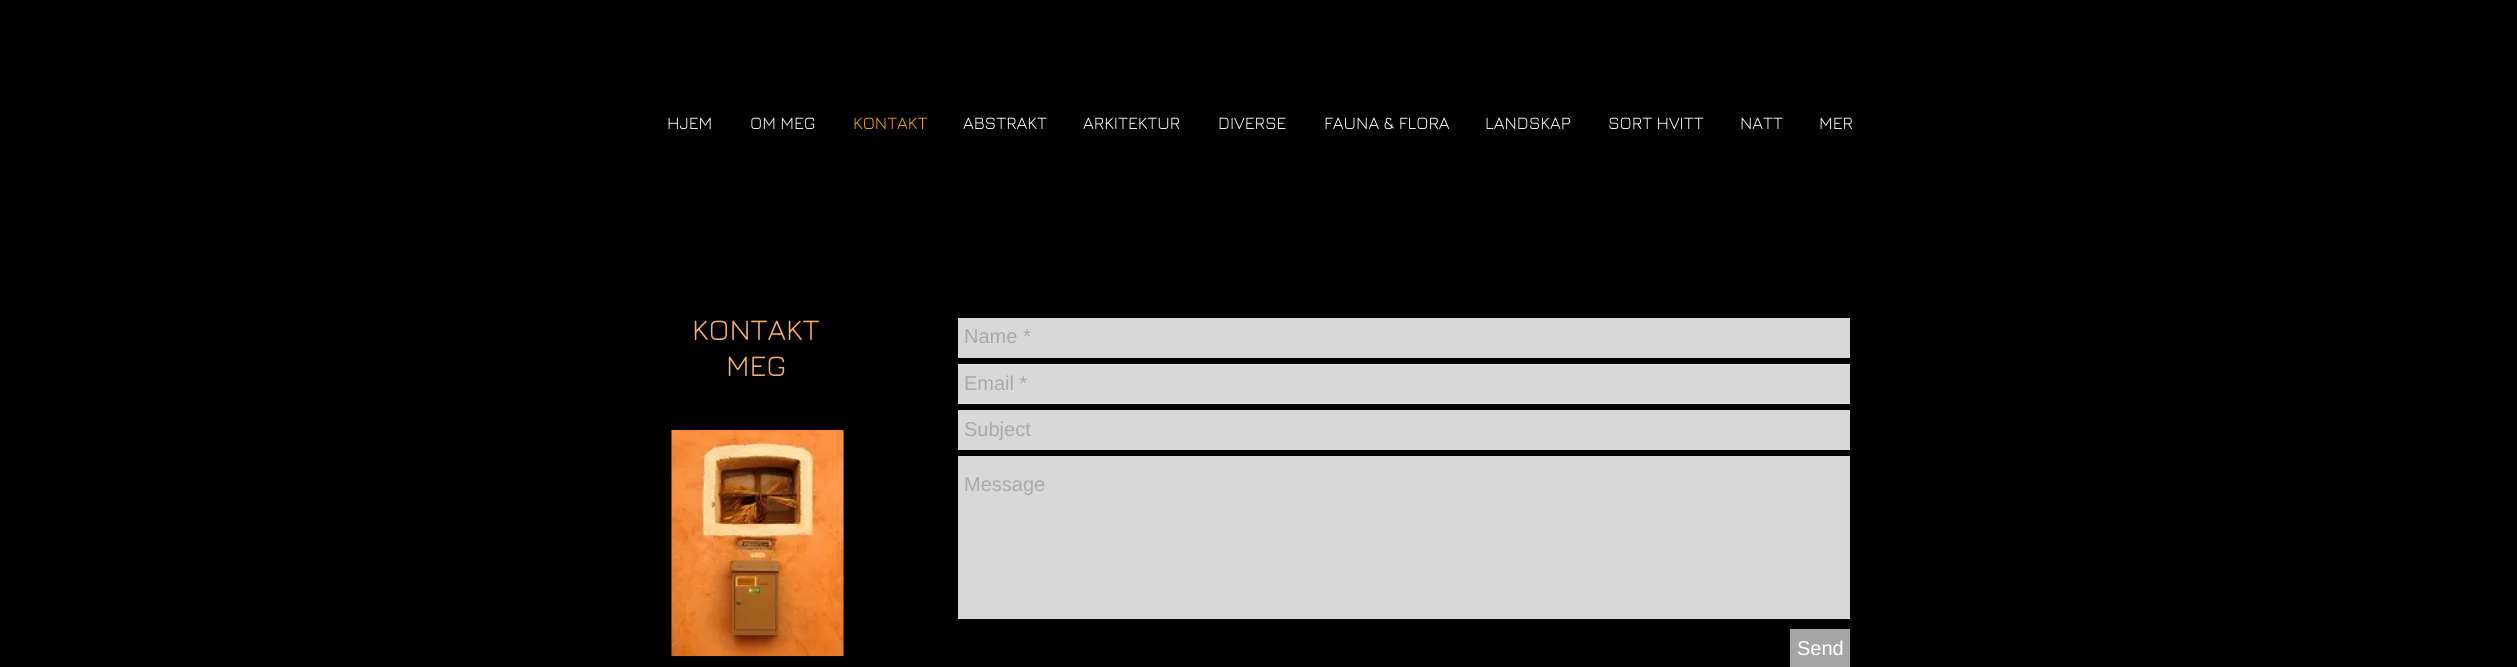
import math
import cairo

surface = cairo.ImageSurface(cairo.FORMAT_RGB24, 2517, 667)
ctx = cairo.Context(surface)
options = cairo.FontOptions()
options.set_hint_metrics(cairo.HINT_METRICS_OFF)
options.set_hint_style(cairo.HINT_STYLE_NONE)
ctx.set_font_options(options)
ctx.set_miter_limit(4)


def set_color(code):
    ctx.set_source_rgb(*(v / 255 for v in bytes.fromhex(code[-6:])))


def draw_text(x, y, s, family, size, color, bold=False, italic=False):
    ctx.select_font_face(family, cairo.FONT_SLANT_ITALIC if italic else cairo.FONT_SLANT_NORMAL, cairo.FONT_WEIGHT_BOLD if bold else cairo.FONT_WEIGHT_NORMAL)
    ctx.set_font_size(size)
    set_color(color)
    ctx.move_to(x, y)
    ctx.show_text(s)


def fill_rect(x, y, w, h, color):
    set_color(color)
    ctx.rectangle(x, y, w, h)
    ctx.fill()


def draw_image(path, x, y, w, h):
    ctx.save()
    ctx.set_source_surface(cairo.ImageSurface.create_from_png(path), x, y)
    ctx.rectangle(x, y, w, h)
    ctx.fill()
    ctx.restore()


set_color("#000000")
ctx.paint()
draw_text(667, 129, "HJEM", "Jura", 17.5, "#ffffff")
draw_text(750, 129, "OM MEG", "Jura", 17.5, "#ffffff")
draw_text(853, 129, "KONTAKT", "Jura", 17.5, "#f7a900")
draw_text(963, 129, "ABSTRAKT", "Jura", 17.5, "#ffffff")
draw_text(1083, 129, "ARKITEKTUR", "Jura", 17.5, "#ffffff")
draw_text(1218, 129, "DIVERSE", "Jura", 17.5, "#ffffff")
draw_text(1324, 129, "FAUNA & FLORA", "Jura", 17.5, "#ffffff")
draw_text(1485, 129, "LANDSKAP", "Jura", 17.5, "#ffffff")
draw_text(1608, 129, "SORT HVITT", "Jura", 17.5, "#ffffff")
draw_text(1740, 129, "NATT", "Jura", 17.5, "#ffffff")
draw_text(1819, 129, "MER", "Jura", 17.5, "#ffffff")
draw_text(692, 340, "KONTAKT", "Jura", 30, "#f7af6c")
draw_text(726, 376, "MEG", "Jura", 30, "#f7af6c")
fill_rect(958, 318, 892, 40, "#d8d8d8")
draw_text(964, 343, "Name *", "Liberation Sans", 20, "#a9a9a9")
fill_rect(958, 364, 892, 40, "#d8d8d8")
draw_text(964, 390, "Email *", "Liberation Sans", 20, "#a9a9a9")
fill_rect(958, 410, 892, 40, "#d8d8d8")
draw_text(964, 436, "Subject", "Liberation Sans", 20, "#a9a9a9")
fill_rect(958, 456, 892, 163, "#d8d8d8")
draw_text(964, 491, "Message", "Liberation Sans", 20, "#a9a9a9")
fill_rect(1790, 629, 60, 38, "#a5a5a5")
draw_text(1797, 655, "Send", "Liberation Sans", 20, "#ffffff")
draw_image("assets/img1.png", 671, 430, 173, 227)
surface.write_to_png("output.png")
